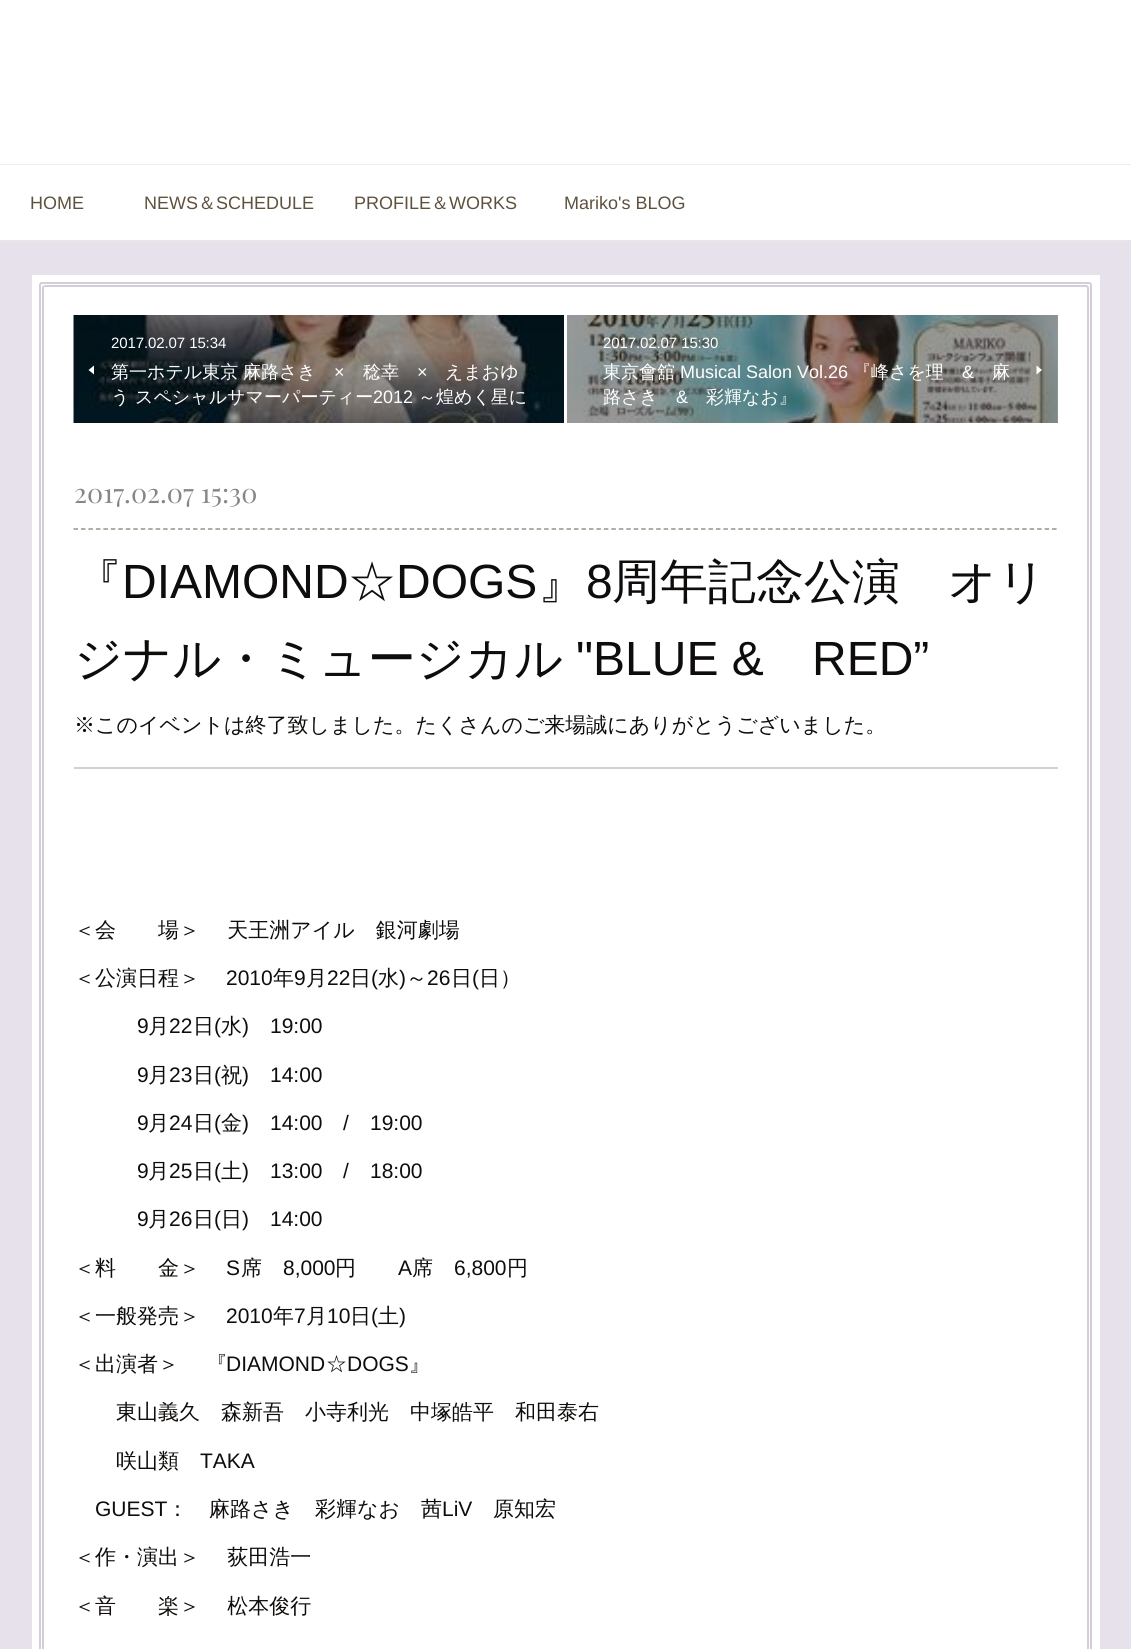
import math
import cairo

surface = cairo.ImageSurface(cairo.FORMAT_RGB24, 1131, 1649)
ctx = cairo.Context(surface)
options = cairo.FontOptions()
options.set_hint_metrics(cairo.HINT_METRICS_OFF)
options.set_hint_style(cairo.HINT_STYLE_NONE)
ctx.set_font_options(options)
ctx.set_miter_limit(4)


def set_color(code):
    ctx.set_source_rgb(*(v / 255 for v in bytes.fromhex(code[-6:])))


def draw_text(x, y, s, family, size, color, bold=False, italic=False):
    ctx.select_font_face(family, cairo.FONT_SLANT_ITALIC if italic else cairo.FONT_SLANT_NORMAL, cairo.FONT_WEIGHT_BOLD if bold else cairo.FONT_WEIGHT_NORMAL)
    ctx.set_font_size(size)
    set_color(color)
    ctx.move_to(x, y)
    ctx.show_text(s)


def draw_spaced(x, y, s, letter, word):
    ctx.move_to(x, y)
    for ch in s:
        ctx.show_text(ch)
        ctx.rel_move_to(letter + word * (ch == ' '), 0)


def fill_rect(x, y, w, h, color):
    set_color(color)
    ctx.rectangle(x, y, w, h)
    ctx.fill()


def rounded_rect(x, y, w, h, r):
    ctx.new_sub_path()
    for i, (u, v) in enumerate([(x + w - r, y + h - r), (x + r, y + h - r), (x + r, y + r), (x + w - r, y + r)]):
        ctx.arc(u, v, r, i * math.pi / 2, (i + 1) * math.pi / 2)
    ctx.close_path()


def draw_image(path, x, y, w, h):
    ctx.save()
    ctx.set_source_surface(cairo.ImageSurface.create_from_png(path), x, y)
    ctx.rectangle(x, y, w, h)
    ctx.fill()
    ctx.restore()


set_color("#e7e1eb")
ctx.paint()
fill_rect(0, 0, 1131, 164, "#ffffff")
fill_rect(0, 164, 1131, 1, "#eeeeee")
fill_rect(0, 165, 1131, 75, "#ffffff")
fill_rect(0, 240, 1131, 2, "#e6e6e6")
draw_text(30, 209, "HOME", "Liberation Sans", 18, "#5e523d")
draw_text(144, 209, "NEWS", "Liberation Sans", 18, "#5e523d")
draw_text(198, 209, "＆", "WenQuanYi Zen Hei Medium", 18, "#5e523d")
draw_text(216, 209, "SCHEDULE", "Liberation Sans", 18, "#5e523d")
draw_text(354, 209, "PROFILE", "Liberation Sans", 18, "#5e523d")
draw_text(431, 209, "＆", "WenQuanYi Zen Hei Medium", 18, "#5e523d")
draw_text(449, 209, "WORKS", "Liberation Sans", 18, "#5e523d")
draw_text(564, 209, "Mariko's BLOG", "Liberation Sans", 18, "#5e523d")
fill_rect(32, 275, 1068, 1374, "#ffffff")
fill_rect(1057, 315, 1, 108, "#999999")
rounded_rect(40, 283, 1051, 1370, 2)
set_color("#d4ced9")
ctx.stroke()
rounded_rect(43, 286, 1045, 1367, 2)
ctx.stroke()
draw_image("assets/img1.png", 73, 315, 491, 108)
ctx.set_font_size(15)
set_color("#ffffff")
draw_spaced(111, 348, "2017.02.07 15:34", -0.1, 0)
ctx.new_path()
ctx.move_to(94, 374.5)
ctx.line_to(94, 365.5)
ctx.line_to(88.5, 370)
ctx.close_path()
ctx.fill()
draw_text(111, 378, "第一ホテル東京", "WenQuanYi Zen Hei Medium", 18, "#ffffff")
draw_text(243, 378, "麻路さき", "WenQuanYi Zen Hei Medium", 18, "#ffffff")
draw_text(334, 378, "×", "Liberation Sans", 18, "#ffffff")
draw_text(363, 378, "稔幸", "WenQuanYi Zen Hei Medium", 18, "#ffffff")
draw_text(417, 378, "×", "Liberation Sans", 18, "#ffffff")
draw_text(445, 378, "えまおゆ", "WenQuanYi Zen Hei Medium", 18, "#ffffff")
draw_text(111, 403, "う", "WenQuanYi Zen Hei Medium", 18, "#ffffff")
draw_text(135, 403, "スペシャルサマーパーティー", "WenQuanYi Zen Hei Medium", 18, "#ffffff")
draw_text(373, 403, "2012", "Liberation Sans", 18, "#ffffff")
draw_text(418, 403, "～煌めく星に", "WenQuanYi Zen Hei Medium", 18, "#ffffff")
draw_image("assets/img2.png", 567, 315, 491, 108)
ctx.select_font_face("Liberation Sans")
ctx.set_font_size(15)
draw_spaced(603, 348, "2017.02.07 15:30", -0.1, 0)
draw_text(603, 378, "東京會舘", "WenQuanYi Zen Hei Medium", 18, "#ffffff")
draw_text(680, 378, "Musical Salon Vol.26", "Liberation Sans", 18, "#ffffff")
draw_text(853, 378, "『峰さを理", "WenQuanYi Zen Hei Medium", 18, "#ffffff")
draw_text(962, 378, "&", "Liberation Sans", 18, "#ffffff")
draw_text(992, 378, "麻", "WenQuanYi Zen Hei Medium", 18, "#ffffff")
draw_text(603, 403, "路さき", "WenQuanYi Zen Hei Medium", 18, "#ffffff")
draw_text(676, 403, "&", "Liberation Sans", 18, "#ffffff")
draw_text(706, 403, "彩輝なお』", "WenQuanYi Zen Hei Medium", 18, "#ffffff")
ctx.new_path()
ctx.move_to(1036.5, 365.5)
ctx.line_to(1036.5, 374.5)
ctx.line_to(1042, 370)
ctx.close_path()
ctx.fill()
draw_text(74, 503, "2017.02.07 15:30", "Playfair Display", 27, "#878685")
ctx.new_path()
ctx.move_to(73.5, 529)
ctx.line_to(1057.5, 529)
set_color("#999287")
ctx.set_line_width(1.5)
ctx.set_dash([4.5, 2.97])
ctx.stroke()
draw_text(74, 598, "『", "WenQuanYi Zen Hei Medium", 48, "#0f0d0b")
draw_text(122, 598, "DIAMOND", "Liberation Sans", 48, "#0f0d0b")
draw_text(348, 598, "☆", "WenQuanYi Zen Hei Medium", 48, "#0f0d0b")
draw_text(396, 598, "DOGS", "Liberation Sans", 48, "#0f0d0b")
draw_text(538, 598, "』", "WenQuanYi Zen Hei Medium", 48, "#0f0d0b")
draw_text(586, 598, "8", "Liberation Sans", 48, "#0f0d0b")
draw_text(612, 598, "周年記念公演　オリ", "WenQuanYi Zen Hei Medium", 48, "#0f0d0b")
draw_text(74, 675, "ジナル・ミュージカル", "WenQuanYi Zen Hei Medium", 48, "#0f0d0b")
draw_text(576, 675, "\"BLUE &", "Liberation Sans", 48, "#0f0d0b")
draw_text(812, 675, "RED”", "Liberation Sans", 48, "#0f0d0b")
draw_text(74, 732, "※このイベントは終了致しました。たくさんのご来場誠にありがとうございました。", "WenQuanYi Zen Hei Medium", 21, "#0f0d0b")
fill_rect(74, 767, 984, 2, "#d4ced9")
draw_text(74, 937, "＜会　　場＞ 　天王洲アイル　銀河劇場", "WenQuanYi Zen Hei Medium", 21, "#0f0d0b")
draw_text(74, 985, "＜公演日程＞", "WenQuanYi Zen Hei Medium", 21, "#0f0d0b")
draw_text(226, 985, "2010", "Liberation Sans", 21, "#0f0d0b")
draw_text(273, 985, "年", "WenQuanYi Zen Hei Medium", 21, "#0f0d0b")
draw_text(294, 985, "9", "Liberation Sans", 21, "#0f0d0b")
draw_text(306, 985, "月", "WenQuanYi Zen Hei Medium", 21, "#0f0d0b")
draw_text(327, 985, "22", "Liberation Sans", 21, "#0f0d0b")
draw_text(350, 985, "日", "WenQuanYi Zen Hei Medium", 21, "#0f0d0b")
draw_text(371, 985, "(", "Liberation Sans", 21, "#0f0d0b")
draw_text(378, 985, "水", "WenQuanYi Zen Hei Medium", 21, "#0f0d0b")
draw_text(399, 985, ")", "Liberation Sans", 21, "#0f0d0b")
draw_text(406, 985, "～", "WenQuanYi Zen Hei Medium", 21, "#0f0d0b")
draw_text(427, 985, "26", "Liberation Sans", 21, "#0f0d0b")
draw_text(451, 985, "日", "WenQuanYi Zen Hei Medium", 21, "#0f0d0b")
draw_text(472, 985, "(", "Liberation Sans", 21, "#0f0d0b")
draw_text(479, 985, "日）", "WenQuanYi Zen Hei Medium", 21, "#0f0d0b")
draw_text(137, 1033, "9", "Liberation Sans", 21, "#0f0d0b")
draw_text(148, 1033, "月", "WenQuanYi Zen Hei Medium", 21, "#0f0d0b")
draw_text(169, 1033, "22", "Liberation Sans", 21, "#0f0d0b")
draw_text(193, 1033, "日", "WenQuanYi Zen Hei Medium", 21, "#0f0d0b")
draw_text(214, 1033, "(", "Liberation Sans", 21, "#0f0d0b")
draw_text(221, 1033, "水", "WenQuanYi Zen Hei Medium", 21, "#0f0d0b")
draw_text(242, 1033, ")", "Liberation Sans", 21, "#0f0d0b")
draw_text(270, 1033, "19:00", "Liberation Sans", 21, "#0f0d0b")
draw_text(137, 1082, "9", "Liberation Sans", 21, "#0f0d0b")
draw_text(148, 1082, "月", "WenQuanYi Zen Hei Medium", 21, "#0f0d0b")
draw_text(169, 1082, "23", "Liberation Sans", 21, "#0f0d0b")
draw_text(193, 1082, "日", "WenQuanYi Zen Hei Medium", 21, "#0f0d0b")
draw_text(214, 1082, "(", "Liberation Sans", 21, "#0f0d0b")
draw_text(221, 1082, "祝", "WenQuanYi Zen Hei Medium", 21, "#0f0d0b")
draw_text(242, 1082, ")", "Liberation Sans", 21, "#0f0d0b")
draw_text(270, 1082, "14:00", "Liberation Sans", 21, "#0f0d0b")
draw_text(137, 1130, "9", "Liberation Sans", 21, "#0f0d0b")
draw_text(148, 1130, "月", "WenQuanYi Zen Hei Medium", 21, "#0f0d0b")
draw_text(169, 1130, "24", "Liberation Sans", 21, "#0f0d0b")
draw_text(193, 1130, "日", "WenQuanYi Zen Hei Medium", 21, "#0f0d0b")
draw_text(214, 1130, "(", "Liberation Sans", 21, "#0f0d0b")
draw_text(221, 1130, "金", "WenQuanYi Zen Hei Medium", 21, "#0f0d0b")
draw_text(242, 1130, ")", "Liberation Sans", 21, "#0f0d0b")
draw_text(270, 1130, "14:00", "Liberation Sans", 21, "#0f0d0b")
draw_text(343, 1130, "/", "Liberation Sans", 21, "#0f0d0b")
draw_text(370, 1130, "19:00", "Liberation Sans", 21, "#0f0d0b")
draw_text(137, 1178, "9", "Liberation Sans", 21, "#0f0d0b")
draw_text(148, 1178, "月", "WenQuanYi Zen Hei Medium", 21, "#0f0d0b")
draw_text(169, 1178, "25", "Liberation Sans", 21, "#0f0d0b")
draw_text(193, 1178, "日", "WenQuanYi Zen Hei Medium", 21, "#0f0d0b")
draw_text(214, 1178, "(", "Liberation Sans", 21, "#0f0d0b")
draw_text(221, 1178, "土", "WenQuanYi Zen Hei Medium", 21, "#0f0d0b")
draw_text(242, 1178, ")", "Liberation Sans", 21, "#0f0d0b")
draw_text(270, 1178, "13:00", "Liberation Sans", 21, "#0f0d0b")
draw_text(343, 1178, "/", "Liberation Sans", 21, "#0f0d0b")
draw_text(370, 1178, "18:00", "Liberation Sans", 21, "#0f0d0b")
draw_text(137, 1226, "9", "Liberation Sans", 21, "#0f0d0b")
draw_text(148, 1226, "月", "WenQuanYi Zen Hei Medium", 21, "#0f0d0b")
draw_text(169, 1226, "26", "Liberation Sans", 21, "#0f0d0b")
draw_text(193, 1226, "日", "WenQuanYi Zen Hei Medium", 21, "#0f0d0b")
draw_text(214, 1226, "(", "Liberation Sans", 21, "#0f0d0b")
draw_text(221, 1226, "日", "WenQuanYi Zen Hei Medium", 21, "#0f0d0b")
draw_text(242, 1226, ")", "Liberation Sans", 21, "#0f0d0b")
draw_text(270, 1226, "14:00", "Liberation Sans", 21, "#0f0d0b")
draw_text(74, 1275, "＜料　　金＞", "WenQuanYi Zen Hei Medium", 21, "#0f0d0b")
draw_text(226, 1275, "S", "Liberation Sans", 21, "#0f0d0b")
draw_text(241, 1275, "席", "WenQuanYi Zen Hei Medium", 21, "#0f0d0b")
draw_text(283, 1275, "8,000", "Liberation Sans", 21, "#0f0d0b")
draw_text(335, 1275, "円", "WenQuanYi Zen Hei Medium", 21, "#0f0d0b")
draw_text(398, 1275, "A", "Liberation Sans", 21, "#0f0d0b")
draw_text(412, 1275, "席", "WenQuanYi Zen Hei Medium", 21, "#0f0d0b")
draw_text(454, 1275, "6,800", "Liberation Sans", 21, "#0f0d0b")
draw_text(507, 1275, "円", "WenQuanYi Zen Hei Medium", 21, "#0f0d0b")
draw_text(74, 1323, "＜一般発売＞", "WenQuanYi Zen Hei Medium", 21, "#0f0d0b")
draw_text(226, 1323, "2010", "Liberation Sans", 21, "#0f0d0b")
draw_text(273, 1323, "年", "WenQuanYi Zen Hei Medium", 21, "#0f0d0b")
draw_text(294, 1323, "7", "Liberation Sans", 21, "#0f0d0b")
draw_text(306, 1323, "月", "WenQuanYi Zen Hei Medium", 21, "#0f0d0b")
draw_text(327, 1323, "10", "Liberation Sans", 21, "#0f0d0b")
draw_text(350, 1323, "日", "WenQuanYi Zen Hei Medium", 21, "#0f0d0b")
draw_text(371, 1323, "(", "Liberation Sans", 21, "#0f0d0b")
draw_text(378, 1323, "土", "WenQuanYi Zen Hei Medium", 21, "#0f0d0b")
draw_text(399, 1323, ")", "Liberation Sans", 21, "#0f0d0b")
draw_text(74, 1371, "＜出演者＞ 　『", "WenQuanYi Zen Hei Medium", 21, "#0f0d0b")
draw_text(226, 1371, "DIAMOND", "Liberation Sans", 21, "#0f0d0b")
draw_text(326, 1371, "☆", "WenQuanYi Zen Hei Medium", 21, "#0f0d0b")
draw_text(347, 1371, "DOGS", "Liberation Sans", 21, "#0f0d0b")
draw_text(409, 1371, "』", "WenQuanYi Zen Hei Medium", 21, "#0f0d0b")
draw_text(116, 1419, "東山義久　森新吾　小寺利光　中塚皓平　和田泰右", "WenQuanYi Zen Hei Medium", 21, "#0f0d0b")
draw_text(116, 1468, "咲山類", "WenQuanYi Zen Hei Medium", 21, "#0f0d0b")
draw_text(200, 1468, "TAKA", "Liberation Sans", 21, "#0f0d0b")
draw_text(95, 1516, "GUEST", "Liberation Sans", 21, "#0f0d0b")
draw_text(167, 1516, "：　麻路さき　彩輝なお　茜", "WenQuanYi Zen Hei Medium", 21, "#0f0d0b")
draw_text(442, 1516, "LiV", "Liberation Sans", 21, "#0f0d0b")
draw_text(493, 1516, "原知宏", "WenQuanYi Zen Hei Medium", 21, "#0f0d0b")
draw_text(74, 1564, "＜作・演出＞ 　荻田浩一", "WenQuanYi Zen Hei Medium", 21, "#0f0d0b")
draw_text(74, 1613, "＜音　　楽＞ 　松本俊行", "WenQuanYi Zen Hei Medium", 21, "#0f0d0b")
surface.write_to_png("output.png")
